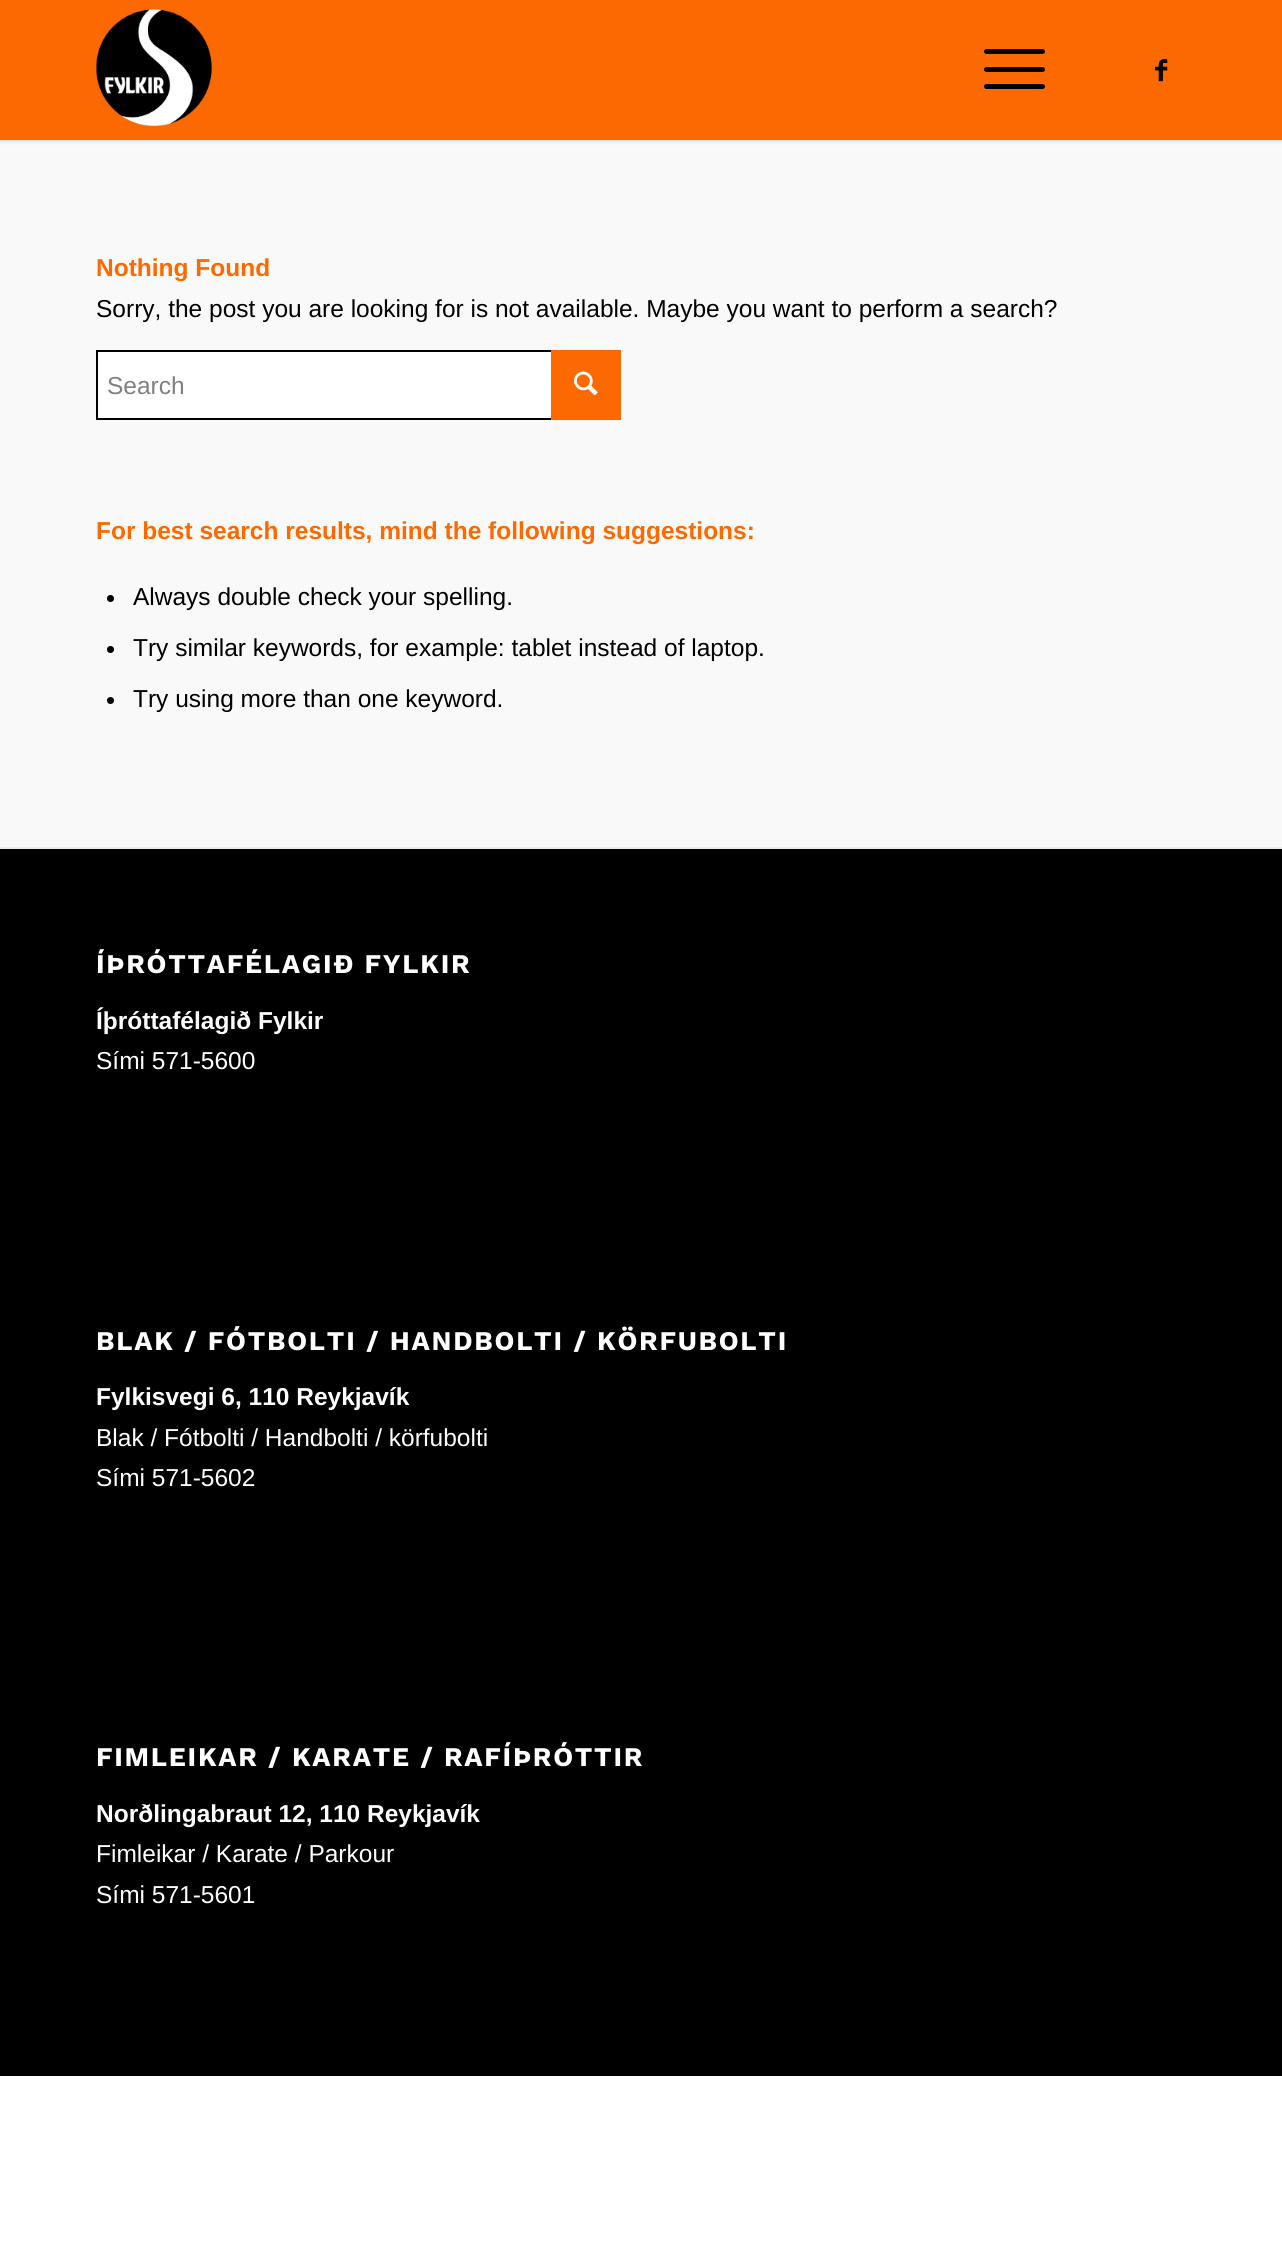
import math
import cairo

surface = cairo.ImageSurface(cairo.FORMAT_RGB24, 1282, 2262)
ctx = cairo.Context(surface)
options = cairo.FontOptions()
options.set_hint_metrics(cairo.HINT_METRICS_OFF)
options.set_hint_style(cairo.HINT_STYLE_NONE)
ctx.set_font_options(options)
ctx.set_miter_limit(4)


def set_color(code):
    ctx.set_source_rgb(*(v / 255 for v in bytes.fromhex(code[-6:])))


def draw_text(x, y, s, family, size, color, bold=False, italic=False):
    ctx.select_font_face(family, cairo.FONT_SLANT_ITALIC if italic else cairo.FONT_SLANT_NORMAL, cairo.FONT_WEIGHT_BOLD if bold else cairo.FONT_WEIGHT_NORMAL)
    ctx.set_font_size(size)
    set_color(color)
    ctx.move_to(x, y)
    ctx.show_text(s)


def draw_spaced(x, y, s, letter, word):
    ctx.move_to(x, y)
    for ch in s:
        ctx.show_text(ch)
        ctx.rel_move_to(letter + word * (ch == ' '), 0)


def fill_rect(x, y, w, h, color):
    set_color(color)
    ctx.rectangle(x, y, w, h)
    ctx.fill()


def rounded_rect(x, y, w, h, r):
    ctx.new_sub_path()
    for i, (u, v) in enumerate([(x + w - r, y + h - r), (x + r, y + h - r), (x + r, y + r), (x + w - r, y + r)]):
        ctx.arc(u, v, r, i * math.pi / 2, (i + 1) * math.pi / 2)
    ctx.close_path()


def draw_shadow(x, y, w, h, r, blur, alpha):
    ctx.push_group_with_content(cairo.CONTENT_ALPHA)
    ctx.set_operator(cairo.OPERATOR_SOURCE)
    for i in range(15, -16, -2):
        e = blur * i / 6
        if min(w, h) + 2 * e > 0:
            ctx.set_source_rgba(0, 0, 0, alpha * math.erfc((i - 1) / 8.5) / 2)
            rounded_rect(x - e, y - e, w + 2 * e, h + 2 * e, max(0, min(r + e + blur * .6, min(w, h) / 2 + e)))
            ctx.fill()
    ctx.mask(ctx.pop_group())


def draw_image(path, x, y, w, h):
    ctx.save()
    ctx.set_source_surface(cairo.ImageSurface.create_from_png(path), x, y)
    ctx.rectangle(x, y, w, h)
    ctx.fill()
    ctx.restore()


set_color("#ffffff")
ctx.paint()
fill_rect(0, 140, 1282, 707, "#f9f9f9")
set_color("#000000")
draw_shadow(-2, -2, 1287, 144, 0, 2, 0.1)
fill_rect(0, 0, 1282, 140, "#fc6900")
draw_image("assets/img1.png", 96, 9, 116, 117)
set_color("#000000")
rounded_rect(984, 67, 61, 5, 2.5)
ctx.fill()
rounded_rect(984, 49, 61, 5, 2.5)
ctx.fill()
rounded_rect(984, 84, 61, 5, 2.5)
ctx.fill()
draw_image("assets/img2.png", 1155, 59, 13, 23)
draw_text(96, 276, "Nothing Found", "Liberation Sans", 24.5, "#fc6900", bold=True)
draw_text(96, 317, "Sorry, the post you are looking for is not available. Maybe you want to perform a search?", "Liberation Sans", 24.5, "#000000")
fill_rect(98, 352, 453, 66, "#ffffff")
ctx.rectangle(97, 351, 523, 68)
set_color("#000000")
ctx.stroke()
draw_text(107, 394, "Search", "Liberation Sans", 24.5, "#808080")
fill_rect(551, 350, 70, 70, "#fc6900")
draw_image("assets/img3.png", 574, 371, 24, 25)
draw_text(96, 539, "For best search results, mind the following suggestions:", "Liberation Sans", 24.5, "#fc6900", bold=True)
set_color("#000000")
ctx.new_path()
ctx.arc(110.5, 598.5, 3.5, 0, 2 * math.pi)
ctx.fill()
draw_text(133, 605, "Always double check your spelling.", "Liberation Sans", 24.5, "#000000")
ctx.new_path()
ctx.arc(110.5, 649.5, 3.5, 0, 2 * math.pi)
ctx.fill()
draw_text(133, 656, "Try similar keywords, for example: tablet instead of laptop.", "Liberation Sans", 24.5, "#000000")
ctx.new_path()
ctx.arc(110.5, 700.5, 3.5, 0, 2 * math.pi)
ctx.fill()
draw_text(133, 707, "Try using more than one keyword.", "Liberation Sans", 24.5, "#000000")
fill_rect(0, 849, 1282, 1227, "#000000")
fill_rect(0, 847, 1282, 2, "#ebebeb")
ctx.select_font_face("Work Sans", cairo.FONT_SLANT_NORMAL, cairo.FONT_WEIGHT_BOLD)
ctx.set_font_size(26.95)
set_color("#ffffff")
draw_spaced(96, 973, "ÍÞRÓTTAFÉLAGIÐ FYLKIR", 1.75, 0)
draw_text(96, 1029, "Íþróttafélagið Fylkir", "Liberation Sans", 24.5, "#ffffff", bold=True)
draw_text(96, 1069, "Sími 571-5600", "Liberation Sans", 24.5, "#ffffff")
ctx.select_font_face("Work Sans", cairo.FONT_SLANT_NORMAL, cairo.FONT_WEIGHT_BOLD)
ctx.set_font_size(26.95)
draw_spaced(96, 1350, "BLAK / FÓTBOLTI / HANDBOLTI / KÖRFUBOLTI", 1.75, 0)
draw_text(96, 1405, "Fylkisvegi 6, 110 Reykjavík", "Liberation Sans", 24.5, "#ffffff", bold=True)
draw_text(96, 1446, "Blak / Fótbolti / Handbolti / körfubolti", "Liberation Sans", 24.5, "#ffffff")
draw_text(96, 1486, "Sími 571-5602", "Liberation Sans", 24.5, "#ffffff")
ctx.select_font_face("Work Sans", cairo.FONT_SLANT_NORMAL, cairo.FONT_WEIGHT_BOLD)
ctx.set_font_size(26.95)
draw_spaced(96, 1766, "FIMLEIKAR / KARATE / RAFÍÞRÓTTIR", 1.75, 0)
draw_text(96, 1822, "Norðlingabraut 12, 110 Reykjavík", "Liberation Sans", 24.5, "#ffffff", bold=True)
draw_text(96, 1862, "Fimleikar / Karate / Parkour", "Liberation Sans", 24.5, "#ffffff")
draw_text(96, 1903, "Sími 571-5601", "Liberation Sans", 24.5, "#ffffff")
surface.write_to_png("output.png")
